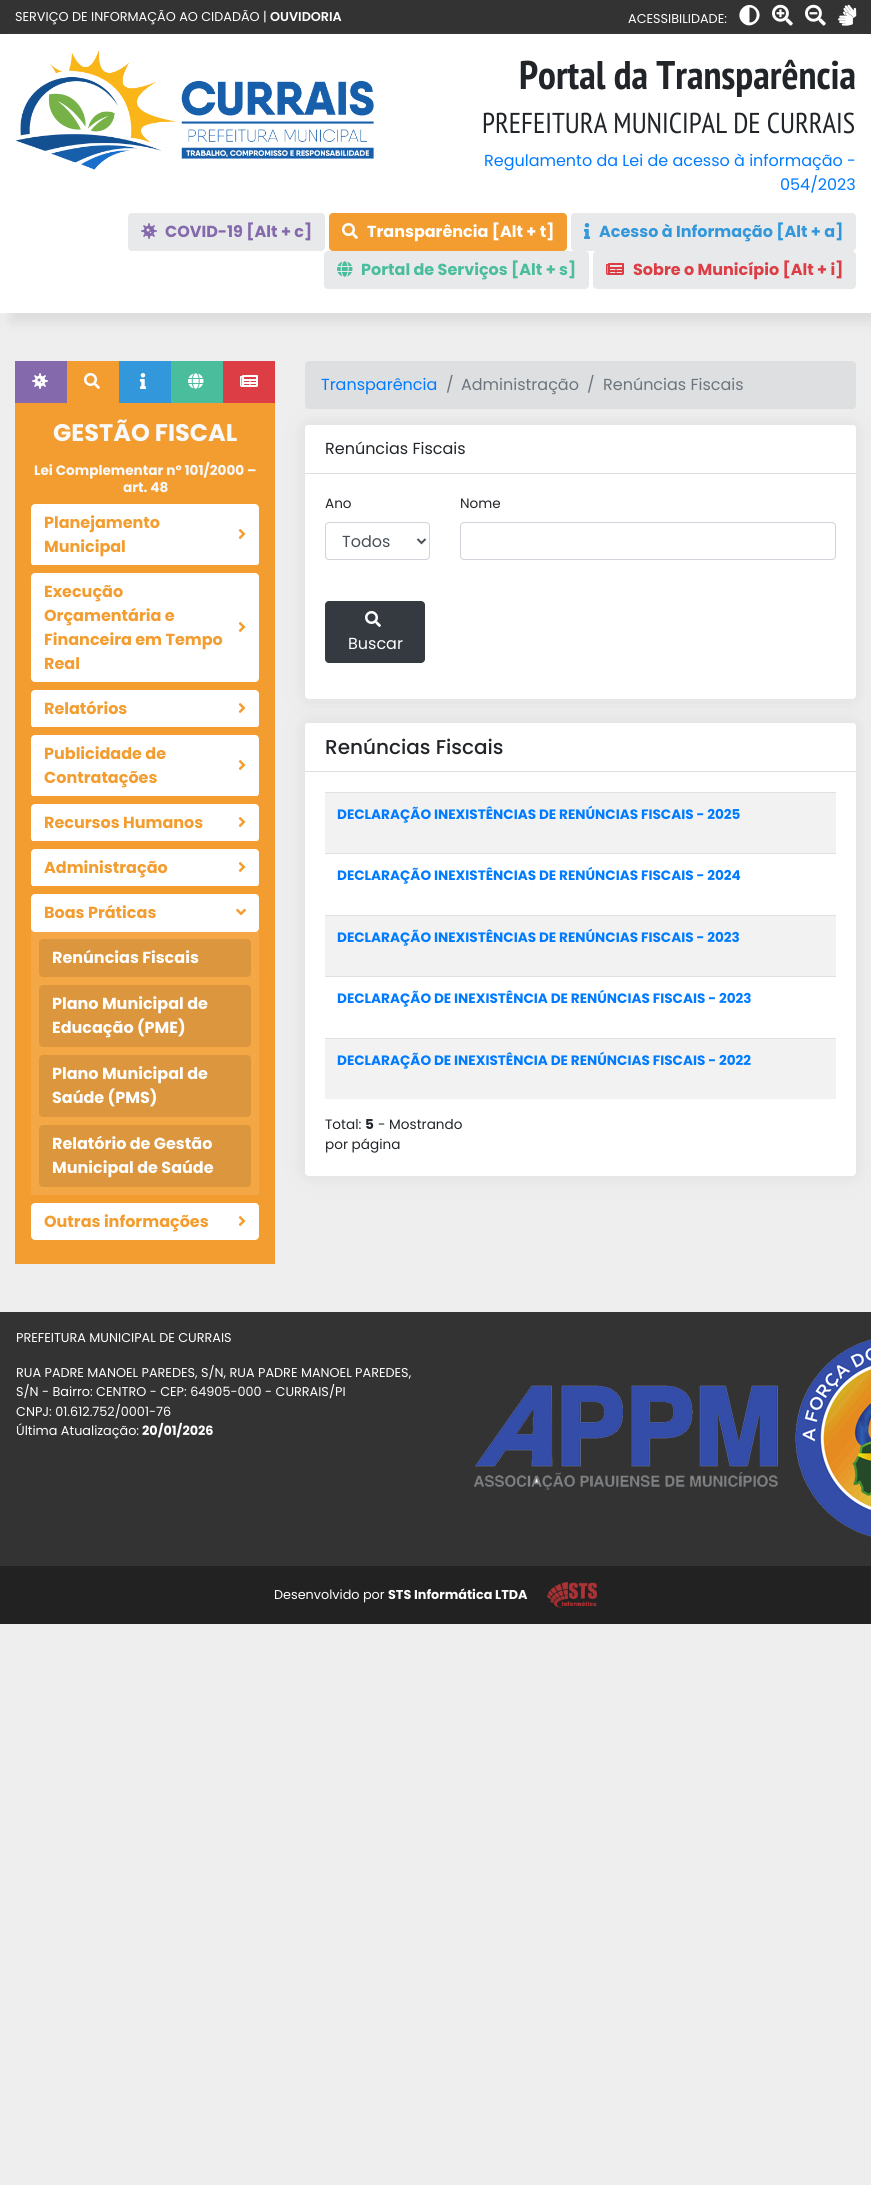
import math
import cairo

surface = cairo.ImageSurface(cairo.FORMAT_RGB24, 871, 2185)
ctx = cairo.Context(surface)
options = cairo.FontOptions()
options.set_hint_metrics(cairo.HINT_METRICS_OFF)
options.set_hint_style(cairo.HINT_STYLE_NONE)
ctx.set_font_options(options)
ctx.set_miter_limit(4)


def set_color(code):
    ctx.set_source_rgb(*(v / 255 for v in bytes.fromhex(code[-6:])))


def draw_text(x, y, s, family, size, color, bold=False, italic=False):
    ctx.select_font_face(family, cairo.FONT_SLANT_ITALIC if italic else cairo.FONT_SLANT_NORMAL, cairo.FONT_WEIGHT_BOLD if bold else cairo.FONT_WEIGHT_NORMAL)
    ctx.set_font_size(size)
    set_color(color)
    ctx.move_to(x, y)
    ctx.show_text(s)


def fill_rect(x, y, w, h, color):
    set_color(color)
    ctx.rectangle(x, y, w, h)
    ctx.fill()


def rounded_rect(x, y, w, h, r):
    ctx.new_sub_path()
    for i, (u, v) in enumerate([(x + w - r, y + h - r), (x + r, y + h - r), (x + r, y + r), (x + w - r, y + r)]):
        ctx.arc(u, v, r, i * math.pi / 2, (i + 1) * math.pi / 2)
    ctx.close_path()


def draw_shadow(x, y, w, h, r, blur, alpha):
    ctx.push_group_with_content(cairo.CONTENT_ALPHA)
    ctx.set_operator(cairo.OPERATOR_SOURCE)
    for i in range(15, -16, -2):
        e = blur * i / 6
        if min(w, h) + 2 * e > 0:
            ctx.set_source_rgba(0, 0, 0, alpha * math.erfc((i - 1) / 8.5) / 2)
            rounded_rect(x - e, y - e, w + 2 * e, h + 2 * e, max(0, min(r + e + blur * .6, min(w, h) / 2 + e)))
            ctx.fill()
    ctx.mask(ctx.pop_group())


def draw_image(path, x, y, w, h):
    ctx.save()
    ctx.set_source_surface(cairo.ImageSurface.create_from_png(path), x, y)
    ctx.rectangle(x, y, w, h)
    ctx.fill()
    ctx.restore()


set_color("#eeeeee")
ctx.paint()
fill_rect(0, 0, 871, 34, "#333333")
draw_text(15, 21, "SERVIÇO DE INFORMAÇÃO AO CIDADÃO |", "Poppins", 12.8, "#ffffff")
draw_text(270, 21, "OUVIDORIA", "Poppins SemiBold", 12.8, "#ffffff")
draw_text(628, 23, "ACESSIBILIDADE:", "Poppins", 12.8, "#ffffff")
ctx.new_path()
ctx.move_to(742.5, 22.5)
ctx.curve_to(733, 13, 747, -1.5, 756.5, 8)
ctx.curve_to(766, 17.5, 751.5, 31.5, 742.5, 22.5)
ctx.close_path()
ctx.move_to(749.5, 22.5)
ctx.curve_to(759, 22.5, 759, 7.5, 749.5, 7.5)
ctx.close_path()
ctx.fill()
draw_image("assets/img1.png", 772, 4, 21, 22)
draw_image("assets/img2.png", 805, 4, 21, 22)
draw_image("assets/img3.png", 838, 4, 19, 22)
set_color("#dddddd")
draw_shadow(10, 44, 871, 279, 0, 5, 1)
fill_rect(0, 34, 871, 279, "#ffffff")
draw_image("assets/img4.png", 15, 50, 359, 120)
draw_text(519, 89, "Portal da Transparência", "PT Sans Narrow", 40, "#212529", bold=True)
draw_text(482, 133, "PREFEITURA MUNICIPAL DE CURRAIS", "PT Sans Narrow", 28.75, "#212529")
draw_text(484, 166, "Regulamento da Lei de acesso à informação -", "Poppins", 16, "#007bff")
draw_text(780, 190, "054/2023", "Poppins", 16, "#007bff")
set_color("#e8e9ea")
rounded_rect(128.5, 213.5, 196, 37, 3.5)
ctx.fill_preserve()
ctx.set_line_width(1)
ctx.stroke()
draw_image("assets/img5.png", 141, 223, 16, 16)
draw_text(165, 237, "COVID-19 [Alt + c]", "Poppins", 16, "#8469ac", bold=True)
set_color("#f39d30")
rounded_rect(329.5, 213.5, 237, 37, 3.5)
ctx.fill_preserve()
ctx.stroke()
draw_image("assets/img6.png", 342, 223, 16, 16)
draw_text(367, 237, "Transparência [Alt + t]", "Poppins", 16, "#ffffff", bold=True)
set_color("#e8e9ea")
rounded_rect(571.5, 213.5, 284, 37, 3.5)
ctx.fill_preserve()
ctx.stroke()
draw_image("assets/img7.png", 584, 223, 6, 16)
draw_text(599, 237, "Acesso à Informação [Alt + a]", "Poppins", 16, "#3398db", bold=True)
set_color("#e8e9ea")
rounded_rect(324.5, 251.5, 264, 37, 3.5)
ctx.fill_preserve()
ctx.stroke()
draw_image("assets/img8.png", 337, 261, 16, 16)
draw_text(361, 275, "Portal de Serviços [Alt + s]", "Poppins", 16, "#4abd9c", bold=True)
set_color("#e8e9ea")
rounded_rect(593.5, 251.5, 262, 37, 3.5)
ctx.fill_preserve()
ctx.stroke()
draw_image("assets/img9.png", 606, 263, 18, 12)
draw_text(633, 275, "Sobre o Município [Alt + i]", "Poppins", 16, "#dd3d45", bold=True)
fill_rect(15, 361, 52, 42, "#8469ac")
draw_image("assets/img10.png", 32, 373, 16, 16)
fill_rect(67, 361, 52, 42, "#f39d30")
draw_image("assets/img6.png", 84, 373, 16, 16)
fill_rect(119, 361, 52, 42, "#3398db")
draw_image("assets/img11.png", 140, 373, 6, 16)
fill_rect(171, 361, 52, 42, "#4abd9c")
draw_image("assets/img12.png", 188, 373, 16, 16)
fill_rect(223, 361, 52, 42, "#dd3d45")
draw_image("assets/img13.png", 240, 375, 18, 12)
fill_rect(15, 403, 260, 861, "#f39d30")
draw_text(53, 441, "GESTÃO FISCAL", "Poppins", 24, "#f8f9fa", bold=True)
draw_text(34, 475, "Lei Complementar nº 101/2000 –", "Poppins", 13.6, "#f8f9fa", bold=True)
draw_text(123, 492, "art. 48", "Poppins", 13.6, "#f8f9fa", bold=True)
ctx.save()
ctx.new_path()
ctx.move_to(35, 504)
ctx.line_to(255, 504)
ctx.curve_to(257, 504, 259, 506, 259, 508)
ctx.line_to(259, 565)
ctx.line_to(31, 565)
ctx.line_to(31, 508)
ctx.curve_to(31, 506, 33, 504, 35, 504)
ctx.close_path()
ctx.clip()
set_color("#ffffff")
rounded_rect(31, 504, 228, 62, 4)
ctx.fill()
ctx.restore()
draw_text(44, 528, "Planejamento", "Poppins", 16, "#f39d30", bold=True)
draw_text(44, 552, "Municipal", "Poppins", 16, "#f39d30", bold=True)
draw_image("assets/img14.png", 238, 529, 8, 10)
ctx.save()
rounded_rect(31, 573, 228, 109, 4)
ctx.clip()
set_color("#ffffff")
rounded_rect(31, 573, 228, 110, 4)
ctx.fill()
ctx.restore()
draw_text(44, 597, "Execução", "Poppins", 16, "#f39d30", bold=True)
draw_text(44, 621, "Orçamentária e", "Poppins", 16, "#f39d30", bold=True)
draw_text(44, 645, "Financeira em Tempo", "Poppins", 16, "#f39d30", bold=True)
draw_text(44, 669, "Real", "Poppins", 16, "#f39d30", bold=True)
draw_image("assets/img14.png", 238, 622, 8, 10)
ctx.save()
ctx.rectangle(31, 690, 228, 37)
ctx.clip()
set_color("#ffffff")
rounded_rect(31, 690, 228, 38, 4)
ctx.fill()
ctx.restore()
draw_text(44, 714, "Relatórios", "Poppins", 16, "#f39d30", bold=True)
draw_image("assets/img14.png", 238, 703, 8, 10)
ctx.save()
ctx.rectangle(31, 735, 228, 61)
ctx.clip()
set_color("#ffffff")
rounded_rect(31, 735, 228, 62, 4)
ctx.fill()
ctx.restore()
draw_text(44, 759, "Publicidade de", "Poppins", 16, "#f39d30", bold=True)
draw_text(44, 783, "Contratações", "Poppins", 16, "#f39d30", bold=True)
draw_image("assets/img14.png", 238, 760, 8, 10)
ctx.save()
ctx.rectangle(31, 804, 228, 37)
ctx.clip()
set_color("#ffffff")
rounded_rect(31, 804, 228, 38, 4)
ctx.fill()
ctx.restore()
draw_text(44, 828, "Recursos Humanos", "Poppins", 16, "#f39d30", bold=True)
draw_image("assets/img14.png", 238, 817, 8, 10)
ctx.save()
ctx.rectangle(31, 849, 228, 37)
ctx.clip()
set_color("#ffffff")
rounded_rect(31, 849, 228, 38, 4)
ctx.fill()
ctx.restore()
draw_text(44, 873, "Administração", "Poppins", 16, "#f39d30", bold=True)
draw_image("assets/img14.png", 238, 862, 8, 10)
set_color("#ffffff")
rounded_rect(31, 894, 228, 38, 4)
ctx.fill()
draw_text(44, 918, "Boas Práticas", "Poppins", 16, "#f39d30", bold=True)
draw_image("assets/img15.png", 236, 908, 10, 8)
ctx.set_source_rgba(1, 1, 1, 0.1)
ctx.rectangle(31, 931, 228, 46)
ctx.fill()
set_color("#dc963e")
rounded_rect(39, 939, 212, 38, 4)
ctx.fill()
draw_text(52, 963, "Renúncias Fiscais", "Poppins", 16, "#ffffff", bold=True)
fill_rect(31, 977, 228, 218, "#f4a745")
set_color("#dc963e")
rounded_rect(39, 985, 212, 62, 4)
ctx.fill()
draw_text(52, 1009, "Plano Municipal de", "Poppins", 16, "#ffffff", bold=True)
draw_text(52, 1033, "Educação (PME)", "Poppins", 16, "#ffffff", bold=True)
set_color("#dc963e")
rounded_rect(39, 1055, 212, 62, 4)
ctx.fill()
draw_text(52, 1079, "Plano Municipal de", "Poppins", 16, "#ffffff", bold=True)
draw_text(52, 1103, "Saúde (PMS)", "Poppins", 16, "#ffffff", bold=True)
set_color("#dc963e")
rounded_rect(39, 1125, 212, 62, 4)
ctx.fill()
draw_text(52, 1149, "Relatório de Gestão", "Poppins", 16, "#ffffff", bold=True)
draw_text(52, 1173, "Municipal de Saúde", "Poppins", 16, "#ffffff", bold=True)
ctx.save()
ctx.new_path()
ctx.move_to(31, 1203)
ctx.line_to(259, 1203)
ctx.line_to(259, 1236)
ctx.curve_to(259, 1238, 257, 1240, 255, 1240)
ctx.line_to(35, 1240)
ctx.curve_to(33, 1240, 31, 1238, 31, 1236)
ctx.close_path()
ctx.clip()
rounded_rect(31, 1203, 228, 38, 4)
ctx.fill()
ctx.restore()
draw_text(44, 1227, "Outras informações", "Poppins", 16, "#f39d30", bold=True)
draw_image("assets/img14.png", 238, 1216, 8, 10)
set_color("#dddfe0")
rounded_rect(305, 361, 551, 48, 4)
ctx.fill()
draw_text(321, 390, "Transparência", "Poppins", 16, "#007bff")
draw_text(446, 390, "/", "Poppins", 16, "#6c757d")
draw_text(461, 390, "Administração", "Poppins", 16, "#6c757d")
draw_text(587, 390, "/", "Poppins", 16, "#6c757d")
draw_text(603, 390, "Renúncias Fiscais", "Poppins", 16, "#6c757d")
set_color("#dddddd")
draw_shadow(305, 425, 551, 274, 4, 10, 1)
set_color("#ffffff")
rounded_rect(305, 425, 551, 274, 4)
ctx.fill()
ctx.new_path()
ctx.move_to(308, 425)
ctx.line_to(853, 425)
ctx.curve_to(854.5, 425, 856, 426.5, 856, 428)
ctx.line_to(856, 474)
ctx.line_to(305, 474)
ctx.line_to(305, 428)
ctx.curve_to(305, 426.5, 306.5, 425, 308, 425)
ctx.close_path()
ctx.fill()
fill_rect(305, 473, 551, 1, "#dfdfdf")
draw_text(325, 454, "Renúncias Fiscais", "Poppins", 16, "#212529")
draw_text(325, 508, "Ano", "Poppins", 13.6, "#212529")
rounded_rect(325.5, 522.5, 104, 37, 3.5)
set_color("#ced4da")
ctx.stroke()
ctx.new_path()
ctx.move_to(417.5, 539)
ctx.line_to(421.5, 543)
ctx.line_to(425.5, 539)
set_color("#495057")
ctx.set_line_width(2)
ctx.stroke()
draw_text(342, 547, "Todos", "Poppins", 16, "#495057")
draw_text(460, 508, "Nome", "Poppins", 13.6, "#212529")
rounded_rect(460.5, 522.5, 375, 37, 3.5)
set_color("#ced4da")
ctx.set_line_width(1)
ctx.stroke()
set_color("#343a40")
rounded_rect(325.5, 601.5, 99, 61, 3.5)
ctx.fill_preserve()
ctx.stroke()
draw_image("assets/img16.png", 365, 611, 16, 16)
draw_text(348, 649, "Buscar", "Poppins", 16, "#ffffff")
set_color("#dddddd")
draw_shadow(305, 723, 551, 453, 4, 10, 1)
set_color("#ffffff")
rounded_rect(305, 723, 551, 453, 4)
ctx.fill()
ctx.new_path()
ctx.move_to(308, 723)
ctx.line_to(853, 723)
ctx.curve_to(854.5, 723, 856, 724.5, 856, 726)
ctx.line_to(856, 772)
ctx.line_to(305, 772)
ctx.line_to(305, 726)
ctx.curve_to(305, 724.5, 306.5, 723, 308, 723)
ctx.close_path()
ctx.fill()
fill_rect(305, 771, 551, 1, "#dfdfdf")
draw_text(325, 754, "Renúncias Fiscais", "Poppins Medium", 20, "#212529")
fill_rect(325, 793, 511, 60, "#f2f2f2")
fill_rect(325, 792, 511, 1, "#dee2e6")
draw_text(337, 819, "DECLARAÇÃO INEXISTÊNCIAS DE RENÚNCIAS FISCAIS - 2025", "Poppins", 13.6, "#007bff", bold=True)
fill_rect(325, 853, 511, 1, "#dee2e6")
draw_text(337, 880, "DECLARAÇÃO INEXISTÊNCIAS DE RENÚNCIAS FISCAIS - 2024", "Poppins", 13.6, "#007bff", bold=True)
fill_rect(325, 916, 511, 60, "#f2f2f2")
fill_rect(325, 915, 511, 1, "#dee2e6")
draw_text(337, 942, "DECLARAÇÃO INEXISTÊNCIAS DE RENÚNCIAS FISCAIS - 2023", "Poppins", 13.6, "#007bff", bold=True)
fill_rect(325, 976, 511, 1, "#dee2e6")
draw_text(337, 1003, "DECLARAÇÃO DE INEXISTÊNCIA DE RENÚNCIAS FISCAIS - 2023", "Poppins", 13.6, "#007bff", bold=True)
fill_rect(325, 1039, 511, 60, "#f2f2f2")
fill_rect(325, 1038, 511, 1, "#dee2e6")
draw_text(337, 1065, "DECLARAÇÃO DE INEXISTÊNCIA DE RENÚNCIAS FISCAIS - 2022", "Poppins", 13.6, "#007bff", bold=True)
draw_text(325, 1129, "Total:", "Poppins", 13.6, "#212529")
draw_text(365, 1129, "5", "Poppins", 13.6, "#212529", bold=True)
draw_text(378, 1129, "- Mostrando", "Poppins", 13.6, "#212529")
draw_text(325, 1149, "por página", "Poppins", 13.6, "#212529")
fill_rect(0, 1312, 871, 254, "#333333")
draw_text(16, 1342, "PREFEITURA MUNICIPAL DE CURRAIS", "Poppins", 12.8, "#ffffff")
draw_text(16, 1377, "RUA PADRE MANOEL PAREDES, S/N, RUA PADRE MANOEL PAREDES,", "Poppins", 12.8, "#ffffff")
draw_text(16, 1396, "S/N - Bairro: CENTRO - CEP: 64905-000 - CURRAIS/PI", "Poppins", 12.8, "#ffffff")
draw_text(16, 1416, "CNPJ: 01.612.752/0001-76", "Poppins", 12.8, "#ffffff")
draw_text(16, 1435, "Última Atualização:", "Poppins", 12.8, "#ffffff")
draw_text(142, 1435, "20/01/2026", "Poppins", 12.8, "#ffffff", bold=True)
draw_image("assets/img17.png", 474, 1339, 397, 198)
fill_rect(0, 1566, 871, 58, "#222222")
draw_text(274, 1599, "Desenvolvido por", "Poppins", 12.8, "#ffffff")
draw_text(388, 1599, "STS Informática LTDA", "Poppins", 12.8, "#ffffff", bold=True)
draw_image("assets/img18.png", 547, 1582, 50, 26)
surface.write_to_png("output.png")
